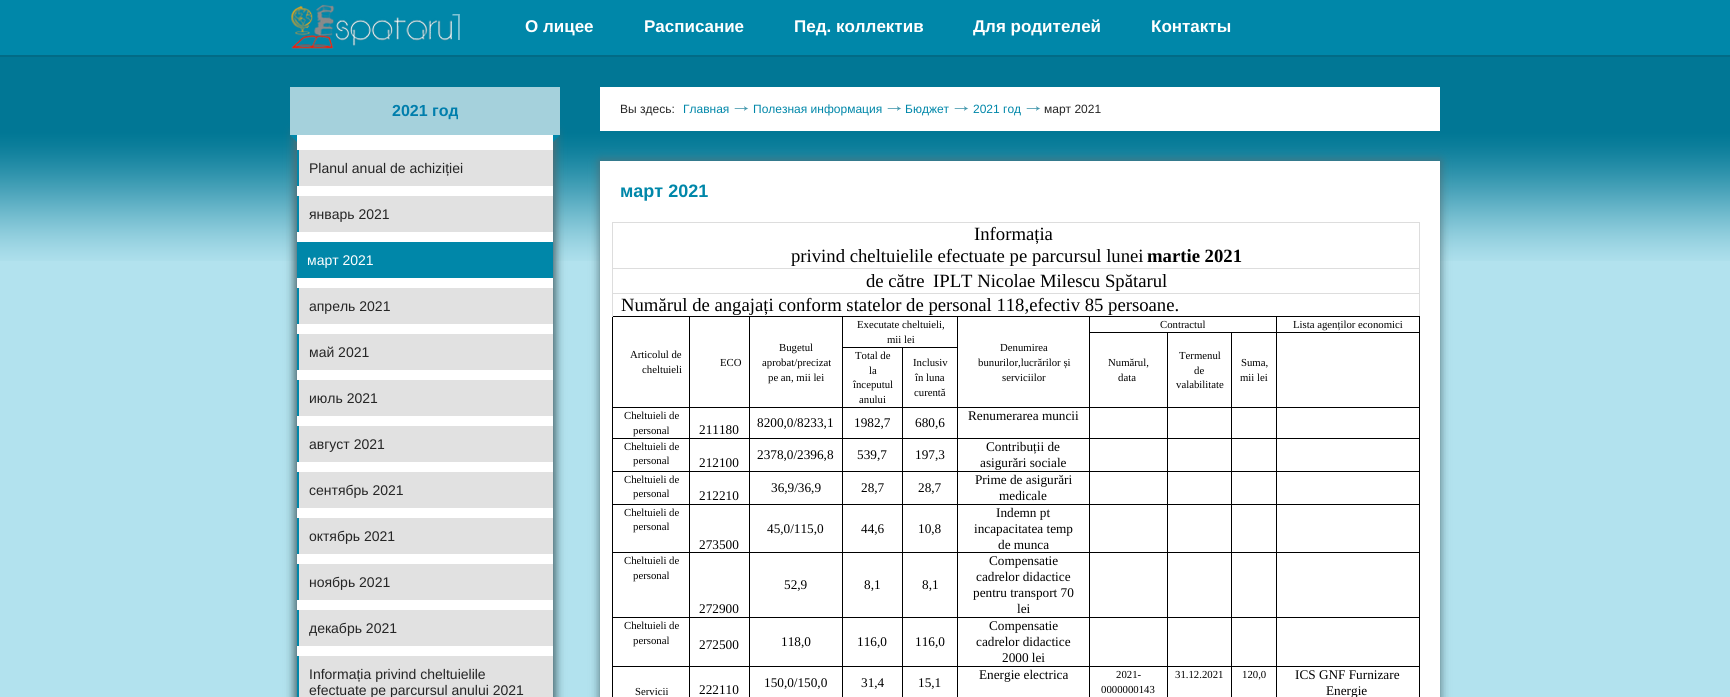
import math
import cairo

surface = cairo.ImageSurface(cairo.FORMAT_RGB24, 1730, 697)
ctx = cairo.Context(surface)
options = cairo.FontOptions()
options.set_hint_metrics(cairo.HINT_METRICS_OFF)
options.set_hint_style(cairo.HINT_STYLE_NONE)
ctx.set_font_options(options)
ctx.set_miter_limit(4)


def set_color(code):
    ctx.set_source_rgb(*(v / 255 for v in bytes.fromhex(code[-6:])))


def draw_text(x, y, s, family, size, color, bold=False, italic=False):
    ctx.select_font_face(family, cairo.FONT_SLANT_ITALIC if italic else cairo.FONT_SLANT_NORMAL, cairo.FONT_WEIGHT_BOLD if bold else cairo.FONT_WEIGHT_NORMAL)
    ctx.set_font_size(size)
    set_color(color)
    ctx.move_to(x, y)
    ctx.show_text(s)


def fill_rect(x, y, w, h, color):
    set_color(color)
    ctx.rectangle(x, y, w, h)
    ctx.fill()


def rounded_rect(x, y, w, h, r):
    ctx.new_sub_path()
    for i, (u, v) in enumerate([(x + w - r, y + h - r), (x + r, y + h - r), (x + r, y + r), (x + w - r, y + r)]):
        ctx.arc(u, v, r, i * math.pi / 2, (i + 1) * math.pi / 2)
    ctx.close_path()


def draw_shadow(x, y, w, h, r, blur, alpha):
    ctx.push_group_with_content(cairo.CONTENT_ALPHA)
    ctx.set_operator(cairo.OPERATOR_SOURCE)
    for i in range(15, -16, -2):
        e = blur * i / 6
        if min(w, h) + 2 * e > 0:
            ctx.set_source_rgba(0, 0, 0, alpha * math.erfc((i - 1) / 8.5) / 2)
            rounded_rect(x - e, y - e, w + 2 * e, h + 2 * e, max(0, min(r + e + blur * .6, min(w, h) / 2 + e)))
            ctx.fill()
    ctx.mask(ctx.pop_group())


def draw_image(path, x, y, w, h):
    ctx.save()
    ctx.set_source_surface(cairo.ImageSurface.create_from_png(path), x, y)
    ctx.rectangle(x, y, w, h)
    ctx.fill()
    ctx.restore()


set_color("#b2e2ee")
ctx.paint()
draw_image("assets/img1.png", 0, 57, 1730, 204)
fill_rect(0, 0, 1730, 55, "#0087a9")
fill_rect(0, 55, 1730, 2, "#026b86")
draw_image("assets/img2.png", 291, 4, 169, 45)
draw_text(525, 32, "О лицее", "Liberation Sans", 17, "#ffffff", bold=True)
draw_text(644, 32, "Расписание", "Liberation Sans", 17, "#ffffff", bold=True)
draw_text(794, 32, "Пед. коллектив", "Liberation Sans", 17, "#ffffff", bold=True)
draw_text(973, 32, "Для родителей", "Liberation Sans", 17, "#ffffff", bold=True)
draw_text(1151, 32, "Контакты", "Liberation Sans", 17, "#ffffff", bold=True)
set_color("#4e6c73")
draw_shadow(295, 132, 256, 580, 0, 5, 1)
draw_shadow(299, 132, 256, 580, 0, 5, 1)
fill_rect(290, 87, 270, 48, "#a5d1dc")
draw_text(392, 116, "2021 год", "Liberation Sans", 16, "#007eac", bold=True)
set_color("#0087a9")
ctx.new_path()
ctx.move_to(297, 135)
ctx.line_to(297, 142)
ctx.line_to(290, 135)
ctx.close_path()
ctx.fill()
ctx.new_path()
ctx.move_to(553, 135)
ctx.line_to(560, 135)
ctx.line_to(553, 142)
ctx.close_path()
ctx.fill()
fill_rect(297, 135, 256, 521, "#ffffff")
fill_rect(299, 150, 254, 36, "#e1e1e1")
fill_rect(297, 150, 2, 36, "#0087a9")
draw_text(309, 173, "Planul anual de achiziției", "Liberation Sans", 14, "#252525")
fill_rect(299, 196, 254, 36, "#e1e1e1")
fill_rect(297, 196, 2, 36, "#0087a9")
draw_text(309, 219, "январь 2021", "Liberation Sans", 14, "#252525")
fill_rect(297, 242, 256, 36, "#0087a9")
draw_text(307, 265, "март 2021", "Liberation Sans", 14, "#ffffff")
fill_rect(299, 288, 254, 36, "#e1e1e1")
fill_rect(297, 288, 2, 36, "#0087a9")
draw_text(309, 311, "апрель 2021", "Liberation Sans", 14, "#252525")
fill_rect(299, 334, 254, 36, "#e1e1e1")
fill_rect(297, 334, 2, 36, "#0087a9")
draw_text(309, 357, "май 2021", "Liberation Sans", 14, "#252525")
fill_rect(299, 380, 254, 36, "#e1e1e1")
fill_rect(297, 380, 2, 36, "#0087a9")
draw_text(309, 403, "июль 2021", "Liberation Sans", 14, "#252525")
fill_rect(299, 426, 254, 36, "#e1e1e1")
fill_rect(297, 426, 2, 36, "#0087a9")
draw_text(309, 449, "август 2021", "Liberation Sans", 14, "#252525")
fill_rect(299, 472, 254, 36, "#e1e1e1")
fill_rect(297, 472, 2, 36, "#0087a9")
draw_text(309, 495, "сентябрь 2021", "Liberation Sans", 14, "#252525")
fill_rect(299, 518, 254, 36, "#e1e1e1")
fill_rect(297, 518, 2, 36, "#0087a9")
draw_text(309, 541, "октябрь 2021", "Liberation Sans", 14, "#252525")
fill_rect(299, 564, 254, 36, "#e1e1e1")
fill_rect(297, 564, 2, 36, "#0087a9")
draw_text(309, 587, "ноябрь 2021", "Liberation Sans", 14, "#252525")
fill_rect(299, 610, 254, 36, "#e1e1e1")
fill_rect(297, 610, 2, 36, "#0087a9")
draw_text(309, 633, "декабрь 2021", "Liberation Sans", 14, "#252525")
fill_rect(299, 656, 254, 41, "#e1e1e1")
fill_rect(297, 656, 2, 41, "#0087a9")
draw_text(309, 679, "Informația privind cheltuielile", "Liberation Sans", 14, "#252525")
draw_text(309, 695, "efectuate pe parcursul anului 2021", "Liberation Sans", 14, "#252525")
fill_rect(600, 87, 840, 44, "#ffffff")
draw_text(620, 113, "Вы здесь:", "Liberation Sans", 12, "#252525")
draw_text(683, 113, "Главная", "Liberation Sans", 12, "#0087a9")
draw_image("assets/img3.png", 734, 106, 15, 5)
draw_text(753, 113, "Полезная информация", "Liberation Sans", 12, "#0087a9")
draw_image("assets/img3.png", 887, 106, 15, 5)
draw_text(905, 113, "Бюджет", "Liberation Sans", 12, "#0087a9")
draw_image("assets/img3.png", 954, 106, 15, 5)
draw_text(973, 113, "2021 год", "Liberation Sans", 12, "#0087a9")
draw_image("assets/img3.png", 1026, 106, 15, 5)
draw_text(1044, 113, "март 2021", "Liberation Sans", 12, "#252525")
set_color("#4e6c73")
draw_shadow(600, 161, 840, 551, 0, 5, 1)
fill_rect(600, 161, 840, 536, "#ffffff")
draw_text(620, 197, "март 2021", "Liberation Sans", 18, "#0087a9", bold=True)
fill_rect(612, 222, 808, 1, "#dddddd")
fill_rect(612, 268, 808, 1, "#dddddd")
fill_rect(612, 293, 808, 1, "#dddddd")
fill_rect(1276, 332, 144, 1, "#000000")
fill_rect(1276, 407, 144, 1, "#000000")
fill_rect(1276, 438, 144, 1, "#000000")
fill_rect(1276, 471, 144, 1, "#000000")
fill_rect(1276, 504, 144, 1, "#000000")
fill_rect(1276, 552, 144, 1, "#000000")
fill_rect(1276, 617, 144, 1, "#000000")
fill_rect(1276, 666, 144, 1, "#000000")
fill_rect(1419, 666, 1, 31, "#000000")
fill_rect(1419, 617, 1, 50, "#000000")
fill_rect(1419, 552, 1, 66, "#000000")
fill_rect(1419, 504, 1, 49, "#000000")
fill_rect(1419, 471, 1, 34, "#000000")
fill_rect(1419, 438, 1, 34, "#000000")
fill_rect(1419, 407, 1, 32, "#000000")
fill_rect(1419, 316, 1, 92, "#000000")
fill_rect(1419, 293, 1, 24, "#dddddd")
fill_rect(1419, 268, 1, 26, "#dddddd")
fill_rect(1419, 222, 1, 47, "#dddddd")
fill_rect(1276, 666, 1, 31, "#000000")
fill_rect(1231, 666, 46, 1, "#000000")
fill_rect(1276, 617, 1, 50, "#000000")
fill_rect(1231, 617, 46, 1, "#000000")
fill_rect(1276, 552, 1, 66, "#000000")
fill_rect(1231, 552, 46, 1, "#000000")
fill_rect(1276, 504, 1, 49, "#000000")
fill_rect(1231, 504, 46, 1, "#000000")
fill_rect(1276, 471, 1, 34, "#000000")
fill_rect(1231, 471, 46, 1, "#000000")
fill_rect(1276, 438, 1, 34, "#000000")
fill_rect(1231, 438, 46, 1, "#000000")
fill_rect(1276, 407, 1, 32, "#000000")
fill_rect(1231, 407, 46, 1, "#000000")
fill_rect(1276, 332, 1, 76, "#000000")
fill_rect(1231, 332, 46, 1, "#000000")
fill_rect(1276, 316, 1, 17, "#000000")
fill_rect(1231, 666, 1, 31, "#000000")
fill_rect(1167, 666, 65, 1, "#000000")
fill_rect(1231, 617, 1, 50, "#000000")
fill_rect(1167, 617, 65, 1, "#000000")
fill_rect(1231, 552, 1, 66, "#000000")
fill_rect(1167, 552, 65, 1, "#000000")
fill_rect(1231, 504, 1, 49, "#000000")
fill_rect(1167, 504, 65, 1, "#000000")
fill_rect(1231, 471, 1, 34, "#000000")
fill_rect(1167, 471, 65, 1, "#000000")
fill_rect(1231, 438, 1, 34, "#000000")
fill_rect(1167, 438, 65, 1, "#000000")
fill_rect(1231, 407, 1, 32, "#000000")
fill_rect(1167, 407, 65, 1, "#000000")
fill_rect(1167, 666, 1, 31, "#000000")
fill_rect(1089, 666, 79, 1, "#000000")
fill_rect(1167, 617, 1, 50, "#000000")
fill_rect(1089, 617, 79, 1, "#000000")
fill_rect(1167, 552, 1, 66, "#000000")
fill_rect(1089, 552, 79, 1, "#000000")
fill_rect(1167, 504, 1, 49, "#000000")
fill_rect(1089, 504, 79, 1, "#000000")
fill_rect(1167, 471, 1, 34, "#000000")
fill_rect(1089, 471, 79, 1, "#000000")
fill_rect(1167, 438, 1, 34, "#000000")
fill_rect(1089, 438, 79, 1, "#000000")
fill_rect(1167, 407, 1, 32, "#000000")
fill_rect(1089, 407, 79, 1, "#000000")
fill_rect(1089, 666, 1, 31, "#000000")
fill_rect(957, 666, 133, 1, "#000000")
fill_rect(1089, 617, 1, 50, "#000000")
fill_rect(957, 617, 133, 1, "#000000")
fill_rect(1089, 552, 1, 66, "#000000")
fill_rect(957, 552, 133, 1, "#000000")
fill_rect(1089, 504, 1, 49, "#000000")
fill_rect(957, 504, 133, 1, "#000000")
fill_rect(1089, 471, 1, 34, "#000000")
fill_rect(957, 471, 133, 1, "#000000")
fill_rect(1089, 438, 1, 34, "#000000")
fill_rect(957, 438, 133, 1, "#000000")
fill_rect(1089, 407, 1, 32, "#000000")
fill_rect(957, 407, 133, 1, "#000000")
fill_rect(957, 666, 1, 31, "#000000")
fill_rect(902, 666, 56, 1, "#000000")
fill_rect(957, 617, 1, 50, "#000000")
fill_rect(902, 617, 56, 1, "#000000")
fill_rect(957, 552, 1, 66, "#000000")
fill_rect(902, 552, 56, 1, "#000000")
fill_rect(957, 504, 1, 49, "#000000")
fill_rect(902, 504, 56, 1, "#000000")
fill_rect(957, 471, 1, 34, "#000000")
fill_rect(902, 471, 56, 1, "#000000")
fill_rect(957, 438, 1, 34, "#000000")
fill_rect(902, 438, 56, 1, "#000000")
fill_rect(957, 407, 1, 32, "#000000")
fill_rect(902, 407, 56, 1, "#000000")
fill_rect(902, 666, 1, 31, "#000000")
fill_rect(842, 666, 61, 1, "#000000")
fill_rect(902, 617, 1, 50, "#000000")
fill_rect(842, 617, 61, 1, "#000000")
fill_rect(902, 552, 1, 66, "#000000")
fill_rect(842, 552, 61, 1, "#000000")
fill_rect(902, 504, 1, 49, "#000000")
fill_rect(842, 504, 61, 1, "#000000")
fill_rect(902, 471, 1, 34, "#000000")
fill_rect(842, 471, 61, 1, "#000000")
fill_rect(902, 438, 1, 34, "#000000")
fill_rect(842, 438, 61, 1, "#000000")
fill_rect(902, 407, 1, 32, "#000000")
fill_rect(842, 407, 61, 1, "#000000")
fill_rect(842, 666, 1, 31, "#000000")
fill_rect(749, 666, 94, 1, "#000000")
fill_rect(842, 617, 1, 50, "#000000")
fill_rect(749, 617, 94, 1, "#000000")
fill_rect(842, 552, 1, 66, "#000000")
fill_rect(749, 552, 94, 1, "#000000")
fill_rect(842, 504, 1, 49, "#000000")
fill_rect(749, 504, 94, 1, "#000000")
fill_rect(842, 471, 1, 34, "#000000")
fill_rect(749, 471, 94, 1, "#000000")
fill_rect(842, 438, 1, 34, "#000000")
fill_rect(749, 438, 94, 1, "#000000")
fill_rect(842, 407, 1, 32, "#000000")
fill_rect(749, 407, 94, 1, "#000000")
fill_rect(749, 666, 1, 31, "#000000")
fill_rect(689, 666, 61, 1, "#000000")
fill_rect(749, 617, 1, 50, "#000000")
fill_rect(689, 617, 61, 1, "#000000")
fill_rect(749, 552, 1, 66, "#000000")
fill_rect(689, 552, 61, 1, "#000000")
fill_rect(749, 504, 1, 49, "#000000")
fill_rect(689, 504, 61, 1, "#000000")
fill_rect(749, 471, 1, 34, "#000000")
fill_rect(689, 471, 61, 1, "#000000")
fill_rect(749, 438, 1, 34, "#000000")
fill_rect(689, 438, 61, 1, "#000000")
fill_rect(749, 407, 1, 32, "#000000")
fill_rect(689, 407, 61, 1, "#000000")
fill_rect(689, 666, 1, 31, "#000000")
fill_rect(612, 666, 78, 1, "#000000")
fill_rect(689, 617, 1, 50, "#000000")
fill_rect(612, 617, 78, 1, "#000000")
fill_rect(689, 552, 1, 66, "#000000")
fill_rect(612, 552, 78, 1, "#000000")
fill_rect(689, 504, 1, 49, "#000000")
fill_rect(612, 504, 78, 1, "#000000")
fill_rect(689, 471, 1, 34, "#000000")
fill_rect(612, 471, 78, 1, "#000000")
fill_rect(689, 438, 1, 34, "#000000")
fill_rect(612, 438, 78, 1, "#000000")
fill_rect(689, 407, 1, 32, "#000000")
fill_rect(612, 407, 78, 1, "#000000")
fill_rect(689, 316, 1, 92, "#000000")
fill_rect(749, 316, 1, 92, "#000000")
fill_rect(902, 347, 56, 1, "#000000")
fill_rect(957, 316, 1, 92, "#000000")
fill_rect(902, 347, 1, 61, "#000000")
fill_rect(842, 347, 61, 1, "#000000")
fill_rect(842, 316, 1, 92, "#000000")
fill_rect(1231, 332, 1, 76, "#000000")
fill_rect(1167, 332, 65, 1, "#000000")
fill_rect(1167, 332, 1, 76, "#000000")
fill_rect(1089, 332, 79, 1, "#000000")
fill_rect(1089, 316, 1, 92, "#000000")
fill_rect(612, 666, 1, 31, "#000000")
fill_rect(612, 617, 1, 50, "#000000")
fill_rect(612, 552, 1, 66, "#000000")
fill_rect(612, 504, 1, 49, "#000000")
fill_rect(612, 471, 1, 34, "#000000")
fill_rect(612, 438, 1, 34, "#000000")
fill_rect(612, 316, 1, 123, "#000000")
fill_rect(612, 316, 808, 1, "#000000")
fill_rect(612, 293, 1, 24, "#dddddd")
fill_rect(612, 268, 1, 26, "#dddddd")
fill_rect(612, 222, 1, 47, "#dddddd")
draw_text(974, 240, "Informația", "Liberation Serif", 18.7, "#000000")
draw_text(791, 262, "privind cheltuielile efectuate pe parcursul lunei", "Liberation Serif", 18.7, "#000000")
draw_text(1147, 262, "martie 2021", "Liberation Serif", 18.7, "#000000", bold=True)
draw_text(866, 287, "de către", "Liberation Serif", 18.7, "#000000")
draw_text(933, 287, "IPLT Nicolae Milescu Spătarul", "Liberation Serif", 18.7, "#000000")
draw_text(621, 311, "Numărul de angajați conform statelor de personal 118,efectiv 85 persoane.", "Liberation Serif", 18.7, "#000000")
draw_text(857, 328, "Executate cheltuieli,", "Liberation Serif", 10.75, "#000000")
draw_text(887, 343, "mii lei", "Liberation Serif", 10.75, "#000000")
draw_text(1160, 328, "Contractul", "Liberation Serif", 10.75, "#000000")
draw_text(1293, 328, "Lista agenților economici", "Liberation Serif", 10.75, "#000000")
draw_text(630, 358, "Articolul de", "Liberation Serif", 10.75, "#000000")
draw_text(642, 373, "cheltuieli", "Liberation Serif", 10.75, "#000000")
draw_text(720, 366, "ECO", "Liberation Serif", 10.75, "#000000")
draw_text(779, 351, "Bugetul", "Liberation Serif", 10.75, "#000000")
draw_text(762, 366, "aprobat/precizat", "Liberation Serif", 10.75, "#000000")
draw_text(768, 381, "pe an, mii lei", "Liberation Serif", 10.75, "#000000")
draw_text(1000, 351, "Denumirea", "Liberation Serif", 10.75, "#000000")
draw_text(978, 366, "bunurilor,lucrărilor și", "Liberation Serif", 10.75, "#000000")
draw_text(1002, 381, "serviciilor", "Liberation Serif", 10.75, "#000000")
draw_text(855, 359, "Total de", "Liberation Serif", 10.75, "#000000")
draw_text(869, 374, "la", "Liberation Serif", 10.75, "#000000")
draw_text(853, 388, "începutul", "Liberation Serif", 10.75, "#000000")
draw_text(859, 403, "anului", "Liberation Serif", 10.75, "#000000")
draw_text(913, 366, "Inclusiv", "Liberation Serif", 10.75, "#000000")
draw_text(915, 381, "în luna", "Liberation Serif", 10.75, "#000000")
draw_text(914, 396, "curentă", "Liberation Serif", 10.75, "#000000")
draw_text(1108, 366, "Numărul,", "Liberation Serif", 10.75, "#000000")
draw_text(1118, 381, "data", "Liberation Serif", 10.75, "#000000")
draw_text(1179, 359, "Termenul", "Liberation Serif", 10.75, "#000000")
draw_text(1194, 374, "de", "Liberation Serif", 10.75, "#000000")
draw_text(1176, 388, "valabilitate", "Liberation Serif", 10.75, "#000000")
draw_text(1241, 366, "Suma,", "Liberation Serif", 10.75, "#000000")
draw_text(1240, 381, "mii lei", "Liberation Serif", 10.75, "#000000")
draw_text(624, 419, "Cheltuieli de", "Liberation Serif", 10.75, "#000000")
draw_text(633, 434, "personal", "Liberation Serif", 10.75, "#000000")
draw_text(968, 420, "Renumerarea muncii", "Liberation Serif", 13.25, "#000000")
draw_text(699, 434, "211180", "Liberation Serif", 13.25, "#000000")
draw_text(757, 427, "8200,0/8233,1", "Liberation Serif", 13.25, "#000000")
draw_text(854, 427, "1982,7", "Liberation Serif", 13.25, "#000000")
draw_text(915, 427, "680,6", "Liberation Serif", 13.25, "#000000")
draw_text(624, 450, "Cheltuieli de", "Liberation Serif", 10.75, "#000000")
draw_text(633, 464, "personal", "Liberation Serif", 10.75, "#000000")
draw_text(757, 459, "2378,0/2396,8", "Liberation Serif", 13.25, "#000000")
draw_text(857, 459, "539,7", "Liberation Serif", 13.25, "#000000")
draw_text(915, 459, "197,3", "Liberation Serif", 13.25, "#000000")
draw_text(986, 451, "Contribuții de", "Liberation Serif", 13.25, "#000000")
draw_text(980, 467, "asigurări sociale", "Liberation Serif", 13.25, "#000000")
draw_text(699, 467, "212100", "Liberation Serif", 13.25, "#000000")
draw_text(624, 483, "Cheltuieli de", "Liberation Serif", 10.75, "#000000")
draw_text(633, 497, "personal", "Liberation Serif", 10.75, "#000000")
draw_text(771, 492, "36,9/36,9", "Liberation Serif", 13.25, "#000000")
draw_text(861, 492, "28,7", "Liberation Serif", 13.25, "#000000")
draw_text(918, 492, "28,7", "Liberation Serif", 13.25, "#000000")
draw_text(975, 484, "Prime de asigurări", "Liberation Serif", 13.25, "#000000")
draw_text(999, 500, "medicale", "Liberation Serif", 13.25, "#000000")
draw_text(699, 500, "212210", "Liberation Serif", 13.25, "#000000")
draw_text(624, 516, "Cheltuieli de", "Liberation Serif", 10.75, "#000000")
draw_text(633, 530, "personal", "Liberation Serif", 10.75, "#000000")
draw_text(767, 533, "45,0/115,0", "Liberation Serif", 13.25, "#000000")
draw_text(861, 533, "44,6", "Liberation Serif", 13.25, "#000000")
draw_text(918, 533, "10,8", "Liberation Serif", 13.25, "#000000")
draw_text(996, 517, "Indemn pt", "Liberation Serif", 13.25, "#000000")
draw_text(974, 533, "incapacitatea temp", "Liberation Serif", 13.25, "#000000")
draw_text(998, 549, "de munca", "Liberation Serif", 13.25, "#000000")
draw_text(699, 549, "273500", "Liberation Serif", 13.25, "#000000")
draw_text(624, 564, "Cheltuieli de", "Liberation Serif", 10.75, "#000000")
draw_text(633, 579, "personal", "Liberation Serif", 10.75, "#000000")
draw_text(784, 589, "52,9", "Liberation Serif", 13.25, "#000000")
draw_text(864, 589, "8,1", "Liberation Serif", 13.25, "#000000")
draw_text(922, 589, "8,1", "Liberation Serif", 13.25, "#000000")
draw_text(989, 565, "Compensatie", "Liberation Serif", 13.25, "#000000")
draw_text(976, 581, "cadrelor didactice", "Liberation Serif", 13.25, "#000000")
draw_text(973, 597, "pentru transport 70", "Liberation Serif", 13.25, "#000000")
draw_text(1017, 613, "lei", "Liberation Serif", 13.25, "#000000")
draw_text(699, 613, "272900", "Liberation Serif", 13.25, "#000000")
draw_text(624, 629, "Cheltuieli de", "Liberation Serif", 10.75, "#000000")
draw_text(633, 644, "personal", "Liberation Serif", 10.75, "#000000")
draw_text(699, 649, "272500", "Liberation Serif", 13.25, "#000000")
draw_text(781, 646, "118,0", "Liberation Serif", 13.25, "#000000")
draw_text(857, 646, "116,0", "Liberation Serif", 13.25, "#000000")
draw_text(915, 646, "116,0", "Liberation Serif", 13.25, "#000000")
draw_text(989, 630, "Compensatie", "Liberation Serif", 13.25, "#000000")
draw_text(976, 646, "cadrelor didactice", "Liberation Serif", 13.25, "#000000")
draw_text(1002, 662, "2000 lei", "Liberation Serif", 13.25, "#000000")
draw_text(635, 695, "Servicii", "Liberation Serif", 10.75, "#000000")
draw_text(699, 694, "222110", "Liberation Serif", 13.25, "#000000")
draw_text(764, 687, "150,0/150,0", "Liberation Serif", 13.25, "#000000")
draw_text(861, 687, "31,4", "Liberation Serif", 13.25, "#000000")
draw_text(918, 687, "15,1", "Liberation Serif", 13.25, "#000000")
draw_text(979, 679, "Energie electrica", "Liberation Serif", 13.25, "#000000")
draw_text(1116, 678, "2021-", "Liberation Serif", 10.75, "#000000")
draw_text(1101, 693, "0000000143", "Liberation Serif", 10.75, "#000000")
draw_text(1175, 678, "31.12.2021", "Liberation Serif", 10.75, "#000000")
draw_text(1242, 678, "120,0", "Liberation Serif", 10.75, "#000000")
draw_text(1295, 679, "ICS GNF Furnizare", "Liberation Serif", 13.25, "#000000")
draw_text(1326, 695, "Energie", "Liberation Serif", 13.25, "#000000")
surface.write_to_png("output.png")
